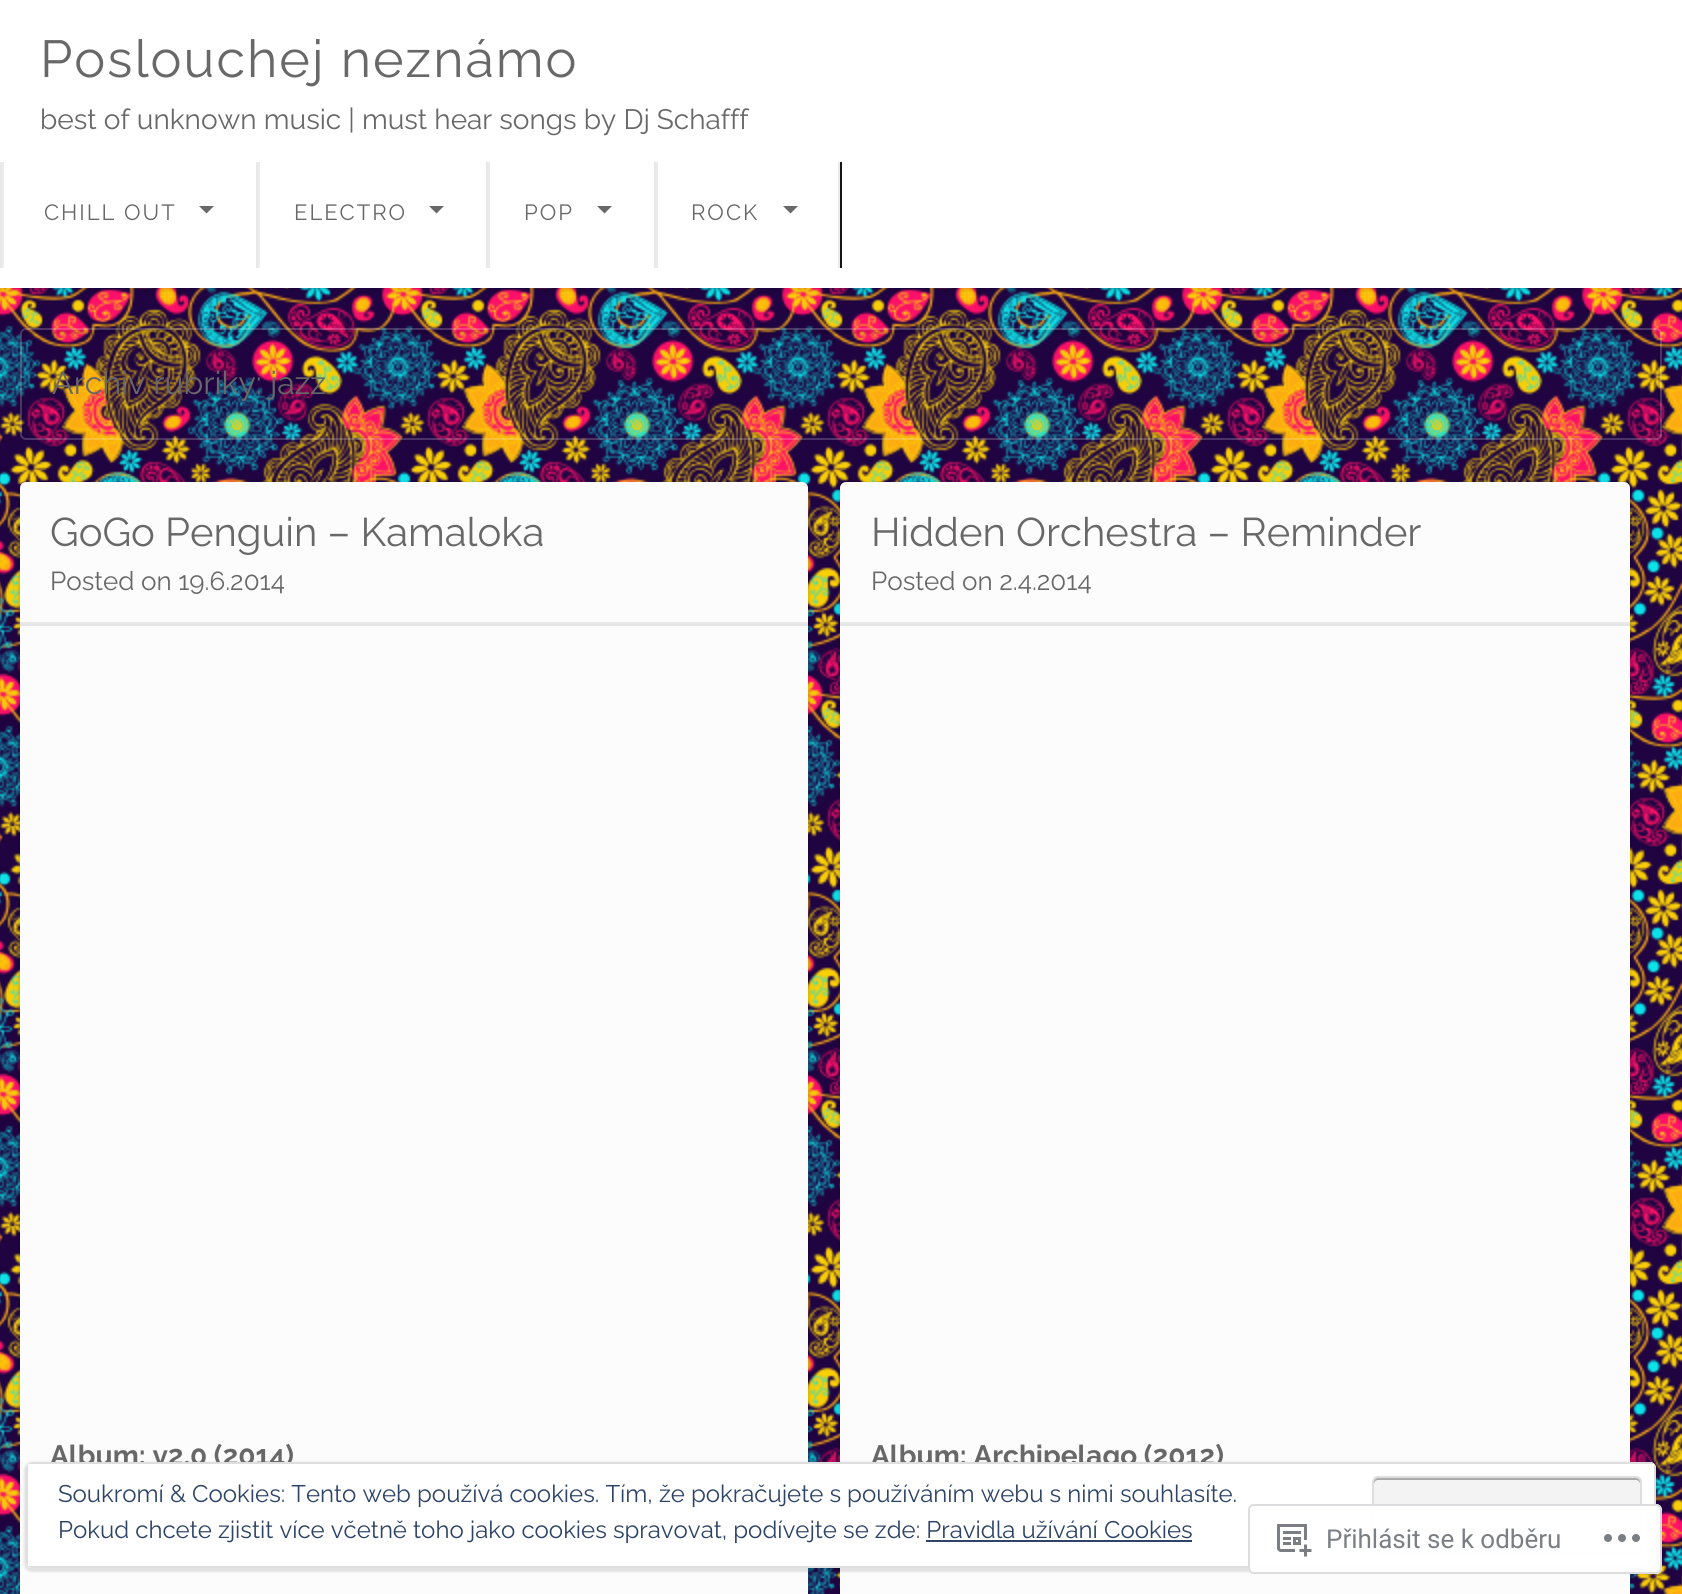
import math
import cairo

surface = cairo.ImageSurface(cairo.FORMAT_RGB24, 1682, 1594)
ctx = cairo.Context(surface)
options = cairo.FontOptions()
options.set_hint_metrics(cairo.HINT_METRICS_OFF)
options.set_hint_style(cairo.HINT_STYLE_NONE)
ctx.set_font_options(options)
ctx.set_miter_limit(4)


def set_color(code):
    ctx.set_source_rgb(*(v / 255 for v in bytes.fromhex(code[-6:])))


def draw_text(x, y, s, family, size, color, bold=False, italic=False):
    ctx.select_font_face(family, cairo.FONT_SLANT_ITALIC if italic else cairo.FONT_SLANT_NORMAL, cairo.FONT_WEIGHT_BOLD if bold else cairo.FONT_WEIGHT_NORMAL)
    ctx.set_font_size(size)
    set_color(color)
    ctx.move_to(x, y)
    ctx.show_text(s)


def draw_spaced(x, y, s, letter, word):
    ctx.move_to(x, y)
    for ch in s:
        ctx.show_text(ch)
        ctx.rel_move_to(letter + word * (ch == ' '), 0)


def fill_rect(x, y, w, h, color):
    set_color(color)
    ctx.rectangle(x, y, w, h)
    ctx.fill()


def rounded_rect(x, y, w, h, r):
    ctx.new_sub_path()
    for i, (u, v) in enumerate([(x + w - r, y + h - r), (x + r, y + h - r), (x + r, y + r), (x + w - r, y + r)]):
        ctx.arc(u, v, r, i * math.pi / 2, (i + 1) * math.pi / 2)
    ctx.close_path()


def draw_shadow(x, y, w, h, r, blur, alpha):
    ctx.push_group_with_content(cairo.CONTENT_ALPHA)
    ctx.set_operator(cairo.OPERATOR_SOURCE)
    for i in range(15, -16, -2):
        e = blur * i / 6
        if min(w, h) + 2 * e > 0:
            ctx.set_source_rgba(0, 0, 0, alpha * math.erfc((i - 1) / 8.5) / 2)
            rounded_rect(x - e, y - e, w + 2 * e, h + 2 * e, max(0, min(r + e + blur * .6, min(w, h) / 2 + e)))
            ctx.fill()
    ctx.mask(ctx.pop_group())


def draw_image(path, x, y, w, h):
    ctx.save()
    ctx.set_source_surface(cairo.ImageSurface.create_from_png(path), x, y)
    ctx.rectangle(x, y, w, h)
    ctx.fill()
    ctx.restore()


set_color("#ffffff")
ctx.paint()
draw_image("assets/img1.png", 0, 288, 1682, 1306)
set_color("#000000")
draw_shadow(-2, 0, 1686, 292, 0, 1, 0.05)
fill_rect(0, 0, 1682, 288, "#ffffff")
ctx.select_font_face("Raleway")
ctx.set_font_size(52)
set_color("#686868")
draw_spaced(40, 77, "Poslouchej neznámo", 2, 0)
draw_text(40, 129, "best of unknown music | must hear songs by Dj Schafff", "Raleway", 28, "#686868")
fill_rect(0, 162, 2, 106, "#e8e8e8")
fill_rect(2, 162, 2, 106, "#ebebeb")
ctx.set_font_size(22)
set_color("#686868")
draw_spaced(44, 220, "CHILL OUT", 2, 0)
ctx.new_path()
ctx.move_to(199, 206)
ctx.line_to(206.5, 213.5)
ctx.line_to(214, 206)
ctx.close_path()
ctx.fill()
fill_rect(256, 162, 2, 106, "#e8e8e8")
fill_rect(258, 162, 2, 106, "#ebebeb")
set_color("#686868")
draw_spaced(294, 220, "ELECTRO", 2, 0)
ctx.new_path()
ctx.move_to(429, 206)
ctx.line_to(436.5, 213.5)
ctx.line_to(444, 206)
ctx.close_path()
ctx.fill()
fill_rect(486, 162, 2, 106, "#e8e8e8")
fill_rect(488, 162, 2, 106, "#ebebeb")
set_color("#686868")
draw_spaced(524, 220, "POP", 2, 0)
ctx.new_path()
ctx.move_to(597, 206)
ctx.line_to(604.5, 213.5)
ctx.line_to(612, 206)
ctx.close_path()
ctx.fill()
fill_rect(840, 162, 2, 106, "#161616")
fill_rect(654, 162, 2, 106, "#e8e8e8")
fill_rect(838, 162, 2, 106, "#ebebeb")
fill_rect(656, 162, 2, 106, "#ebebeb")
set_color("#686868")
draw_spaced(691, 220, "ROCK", 2, 0)
ctx.new_path()
ctx.move_to(783, 206)
ctx.line_to(790.5, 213.5)
ctx.line_to(798, 206)
ctx.close_path()
ctx.fill()
ctx.set_source_rgba(0, 0, 0, 0.1)
ctx.new_path()
ctx.move_to(26, 334)
ctx.line_to(1656, 334)
ctx.curve_to(1657, 334, 1658, 335, 1658, 336)
ctx.line_to(1658, 436)
ctx.curve_to(1658, 437, 1657, 438, 1656, 438)
ctx.curve_to(1658, 438, 1660, 436, 1660, 434)
ctx.line_to(1660, 334)
ctx.curve_to(1660, 332, 1658, 330, 1656, 330)
ctx.line_to(26, 330)
ctx.curve_to(24, 330, 22, 332, 22, 334)
ctx.line_to(22, 434)
ctx.curve_to(22, 436, 24, 438, 26, 438)
ctx.curve_to(25, 438, 24, 437, 24, 436)
ctx.line_to(24, 336)
ctx.curve_to(24, 335, 25, 334, 26, 334)
ctx.close_path()
ctx.fill()
rounded_rect(21, 329, 1640, 110, 5)
ctx.set_source_rgba(0.965, 0.965, 0.965, 0.2)
ctx.stroke()
draw_text(52, 394, "Archiv rubriky: jazz", "Raleway", 32, "#686868")
set_color("#000000")
draw_shadow(18, 482, 792, 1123, 8, 1, 0.1)
set_color("#fcfcfc")
rounded_rect(20, 482, 788, 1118, 6)
ctx.fill()
fill_rect(20, 622, 788, 2, "#e8e8e8")
draw_text(50, 546, "GoGo Penguin – Kamaloka", "Raleway", 40, "#686868")
draw_text(50, 590, "Posted on 19.6.2014", "Raleway", 26, "#686868")
fill_rect(20, 624, 788, 2, "#e5e5e5")
draw_text(50, 1465, "Album: v2.0 (2014)", "Raleway", 28, "#686868", bold=True)
set_color("#000000")
draw_shadow(838, 482, 794, 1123, 8, 1, 0.1)
set_color("#fcfcfc")
rounded_rect(840, 482, 790, 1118, 6)
ctx.fill()
fill_rect(840, 622, 790, 2, "#e8e8e8")
draw_text(871, 546, "Hidden Orchestra – Reminder", "Raleway", 40, "#686868")
draw_text(871, 590, "Posted on 2.4.2014", "Raleway", 26, "#686868")
fill_rect(840, 624, 790, 2, "#e5e5e5")
draw_text(871, 1465, "Album: Archipelago (2012)", "Raleway", 28, "#686868", bold=True)
set_color("#000000")
draw_shadow(24, 1462, 1634, 110, 8, 1, 0.1)
set_color("#ffffff")
rounded_rect(26, 1462, 1630, 106, 6)
ctx.fill()
set_color("#dedede")
ctx.set_fill_rule(cairo.FILL_RULE_EVEN_ODD)
ctx.new_path()
ctx.move_to(32, 1462)
ctx.curve_to(29, 1462, 26, 1465, 26, 1468)
ctx.line_to(26, 1562)
ctx.curve_to(26, 1565, 29, 1568, 32, 1568)
ctx.line_to(1650, 1568)
ctx.curve_to(1653, 1568, 1656, 1565, 1656, 1562)
ctx.line_to(1656, 1468)
ctx.curve_to(1656, 1465, 1653, 1462, 1650, 1462)
ctx.close_path()
ctx.move_to(28, 1464)
ctx.line_to(28, 1566)
ctx.line_to(1654, 1566)
ctx.line_to(1654, 1464)
ctx.close_path()
ctx.fill()
draw_text(58, 1502, "Soukromí & Cookies: Tento web používá cookies. Tím, že pokračujete s používáním webu s nimi souhlasíte.", "Raleway", 24, "#2e4467")
set_color("#f3f3f3")
rounded_rect(1372, 1476, 270, 78, 6)
ctx.fill()
set_color("#aaaaaa")
ctx.set_fill_rule(cairo.FILL_RULE_WINDING)
ctx.new_path()
ctx.move_to(1378, 1480)
ctx.line_to(1636, 1480)
ctx.curve_to(1638, 1480, 1640, 1482, 1640, 1484)
ctx.curve_to(1640, 1481, 1640, 1478, 1636, 1478)
ctx.line_to(1377, 1478)
ctx.curve_to(1374, 1479, 1374, 1481, 1374, 1484)
ctx.curve_to(1374, 1482, 1376, 1480, 1378, 1480)
ctx.close_path()
ctx.fill()
rounded_rect(1373, 1477, 268, 76, 5)
set_color("#dedede")
ctx.stroke()
draw_text(58, 1538, "Pokud chcete zjistit více včetně toho jako cookies spravovat, podívejte se zde: Pravidla užívání Cookies", "Raleway", 24, "#2e4467")
fill_rect(926, 1540, 266, 2, "#2e4467")
ctx.set_source_rgba(1, 1, 1, 0.98)
rounded_rect(1248, 1504, 414, 70, 6)
ctx.fill()
rounded_rect(1249, 1505, 412, 68, 5)
ctx.set_source_rgba(0.863, 0.863, 0.871, 0.98)
ctx.stroke()
draw_image("assets/img2.png", 1277, 1524, 35, 33)
draw_text(1326, 1548, "Přihlásit se k odběru", "Roboto", 26, "#7b7f84")
draw_image("assets/img3.png", 1604, 1534, 36, 8)
surface.write_to_png("output.png")
